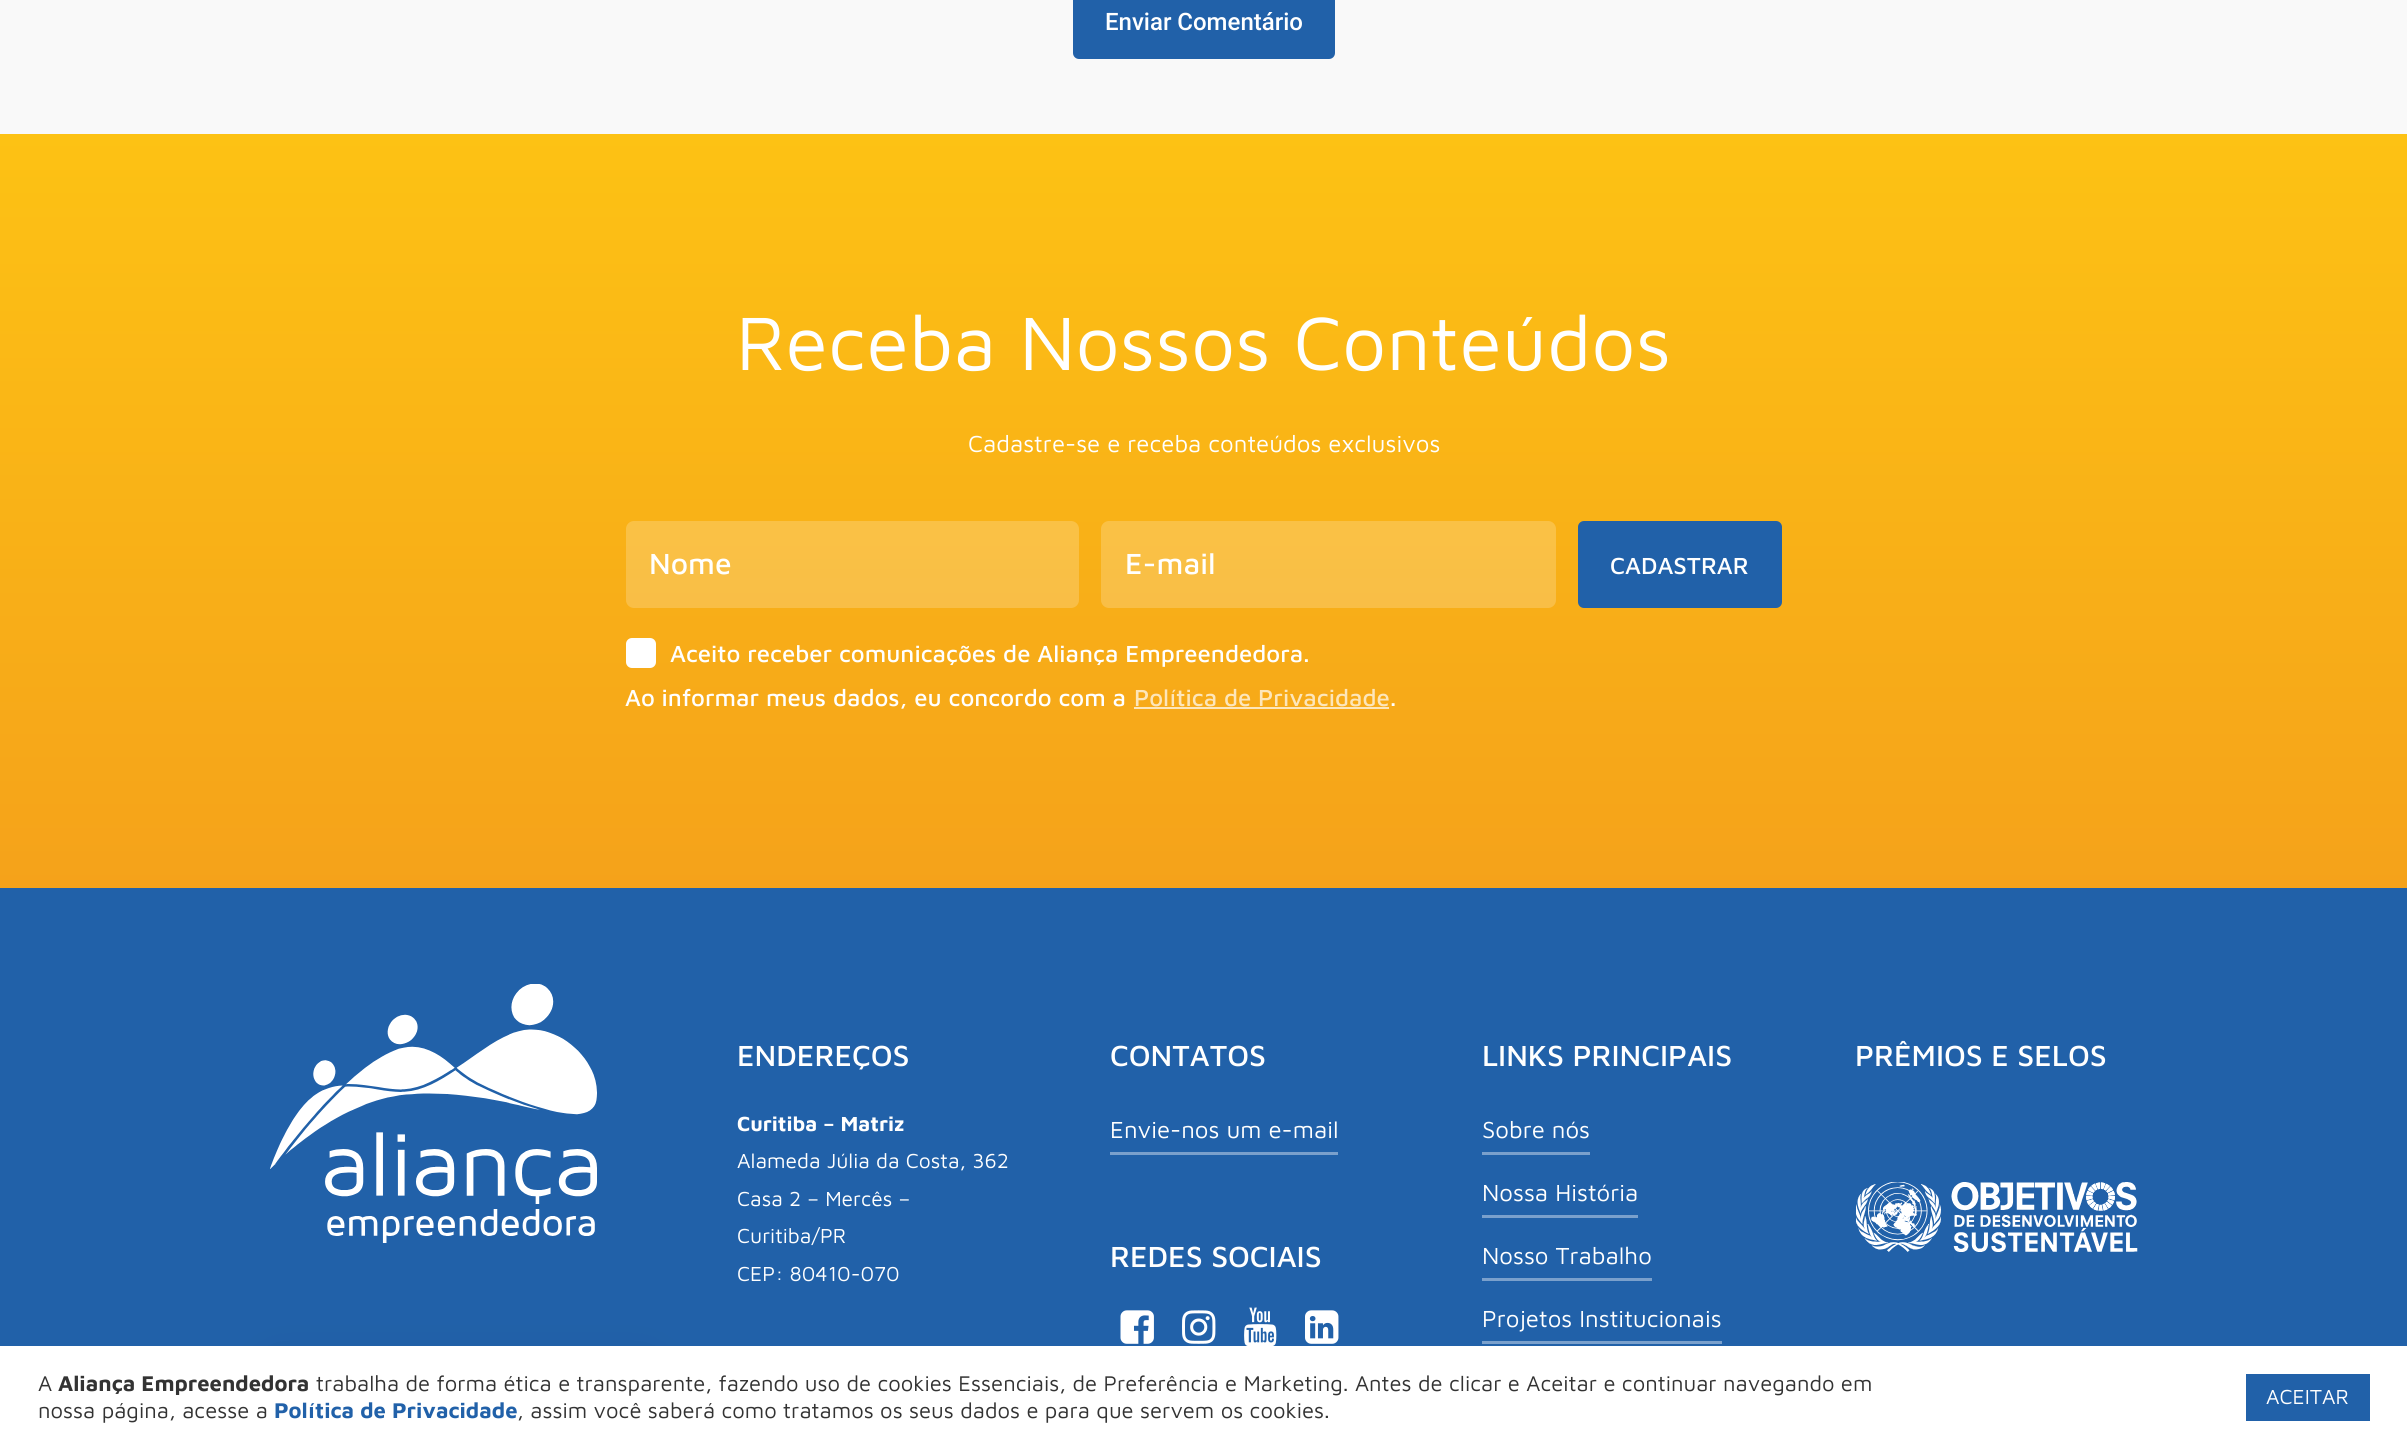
import math
import cairo

surface = cairo.ImageSurface(cairo.FORMAT_RGB24, 2407, 1449)
ctx = cairo.Context(surface)
options = cairo.FontOptions()
options.set_hint_metrics(cairo.HINT_METRICS_OFF)
options.set_hint_style(cairo.HINT_STYLE_NONE)
ctx.set_font_options(options)
ctx.set_miter_limit(4)


def set_color(code):
    ctx.set_source_rgb(*(v / 255 for v in bytes.fromhex(code[-6:])))


def draw_text(x, y, s, family, size, color, bold=False, italic=False):
    ctx.select_font_face(family, cairo.FONT_SLANT_ITALIC if italic else cairo.FONT_SLANT_NORMAL, cairo.FONT_WEIGHT_BOLD if bold else cairo.FONT_WEIGHT_NORMAL)
    ctx.set_font_size(size)
    set_color(color)
    ctx.move_to(x, y)
    ctx.show_text(s)


def fill_rect(x, y, w, h, color):
    set_color(color)
    ctx.rectangle(x, y, w, h)
    ctx.fill()


def rounded_rect(x, y, w, h, r):
    ctx.new_sub_path()
    for i, (u, v) in enumerate([(x + w - r, y + h - r), (x + r, y + h - r), (x + r, y + r), (x + w - r, y + r)]):
        ctx.arc(u, v, r, i * math.pi / 2, (i + 1) * math.pi / 2)
    ctx.close_path()


def draw_shadow(x, y, w, h, r, blur, alpha):
    ctx.push_group_with_content(cairo.CONTENT_ALPHA)
    ctx.set_operator(cairo.OPERATOR_SOURCE)
    for i in range(15, -16, -2):
        e = blur * i / 6
        if min(w, h) + 2 * e > 0:
            ctx.set_source_rgba(0, 0, 0, alpha * math.erfc((i - 1) / 8.5) / 2)
            rounded_rect(x - e, y - e, w + 2 * e, h + 2 * e, max(0, min(r + e + blur * .6, min(w, h) / 2 + e)))
            ctx.fill()
    ctx.mask(ctx.pop_group())


def draw_image(path, x, y, w, h):
    ctx.save()
    ctx.set_source_surface(cairo.ImageSurface.create_from_png(path), x, y)
    ctx.rectangle(x, y, w, h)
    ctx.fill()
    ctx.restore()


set_color("#f9f9f9")
ctx.paint()
set_color("#2161a9")
rounded_rect(1073, -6, 262, 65, 6)
ctx.fill()
draw_text(1105, 30, "Enviar Comentário", "Roboto Medium", 24, "#ffffff")
gradient = cairo.LinearGradient(1204, 133, 1204, 888)
gradient.add_color_stop_rgba(0, 0.992, 0.761, 0.078, 1)
gradient.add_color_stop_rgba(1, 0.961, 0.635, 0.102, 1)
ctx.set_source(gradient)
ctx.rectangle(0, 134, 2407, 754)
ctx.fill()
draw_text(736, 370, "Receba Nossos Conteúdos", "Maven Pro", 78, "#ffffff")
draw_text(968, 452, "Cadastre-se e receba conteúdos exclusivos", "Maven Pro", 24, "#ffffff")
ctx.set_source_rgba(1, 1, 1, 0.2)
rounded_rect(626, 521, 453, 87, 8)
ctx.fill()
draw_text(649, 574, "Nome", "Maven Pro Medium", 30, "#ffffff")
ctx.set_source_rgba(1, 1, 1, 0.2)
rounded_rect(1101, 521, 455, 87, 8)
ctx.fill()
draw_text(1125, 574, "E-mail", "Maven Pro Medium", 30, "#ffffff")
set_color("#2161a9")
rounded_rect(1578, 521, 204, 87, 6)
ctx.fill()
draw_text(1610, 574, "CADASTRAR", "Maven Pro Medium", 24, "#ffffff")
rounded_rect(626, 638, 30, 30, 6)
ctx.fill()
draw_text(670, 662, "Aceito receber comunicações de Aliança Empreendedora.", "Maven Pro Medium", 24, "#ffffff")
draw_text(625, 706, "Ao informar meus dados, eu concordo com a", "Maven Pro Medium", 24, "#ffffff")
draw_text(1134, 706, "Política de Privacidade", "Maven Pro Medium", 24, "#fde6ba")
fill_rect(1134, 707, 255, 2, "#fde6ba")
draw_text(1390, 706, ".", "Maven Pro Medium", 24, "#ffffff")
fill_rect(0, 888, 2407, 458, "#2161a9")
draw_image("assets/img1.png", 270, 984, 327, 259)
draw_text(737, 1066, "ENDEREÇOS", "Maven Pro Medium", 30, "#ffffff")
draw_text(737, 1131, "Curitiba – Matriz", "Maven Pro", 21, "#ffffff", bold=True)
draw_text(737, 1168, "Alameda Júlia da Costa, 362", "Maven Pro", 21, "#ffffff")
draw_text(737, 1206, "Casa 2 – Mercês –", "Maven Pro", 21, "#ffffff")
draw_text(737, 1243, "Curitiba/PR", "Maven Pro", 21, "#ffffff")
draw_text(737, 1281, "CEP: 80410-070", "Maven Pro", 21, "#ffffff")
draw_text(1110, 1066, "CONTATOS", "Maven Pro Medium", 30, "#ffffff")
draw_text(1110, 1138, "Envie-nos um e-mail", "Maven Pro", 24, "#ffffff")
fill_rect(1110, 1152, 228, 3, "#7aa0cc")
draw_text(1110, 1267, "REDES SOCIAIS", "Maven Pro Medium", 30, "#ffffff")
draw_image("assets/img2.png", 1120, 1310, 34, 34)
draw_image("assets/img3.png", 1182, 1310, 34, 34)
draw_image("assets/img4.png", 1244, 1307, 33, 39)
draw_image("assets/img5.png", 1305, 1310, 34, 34)
draw_text(1482, 1066, "LINKS PRINCIPAIS", "Maven Pro Medium", 30, "#ffffff")
draw_text(1482, 1138, "Sobre nós", "Maven Pro", 24, "#ffffff")
fill_rect(1482, 1152, 108, 3, "#7aa0cc")
draw_text(1482, 1201, "Nossa História", "Maven Pro", 24, "#ffffff")
fill_rect(1482, 1215, 156, 3, "#7aa0cc")
draw_text(1482, 1264, "Nosso Trabalho", "Maven Pro", 24, "#ffffff")
fill_rect(1482, 1278, 170, 3, "#7aa0cc")
draw_text(1482, 1327, "Projetos Institucionais", "Maven Pro", 24, "#ffffff")
fill_rect(1482, 1341, 240, 3, "#7aa0cc")
draw_text(1855, 1066, "PRÊMIOS E SELOS", "Maven Pro Medium", 30, "#ffffff")
draw_image("assets/img6.png", 1856, 1182, 282, 70)
set_color("#000000")
draw_shadow(270, 1374, 383, 75, 8, 22.5, 0.2)
fill_rect(0, 1346, 2407, 103, "#ffffff")
draw_text(38, 1391, "A", "Maven Pro", 22, "#333333")
draw_text(58, 1391, "Aliança Empreendedora", "Maven Pro", 22, "#333333", bold=True)
draw_text(316, 1391, "trabalha de forma ética e transparente, fazendo uso de cookies Essenciais, de Preferência e Marketing. Antes de clicar e Aceitar e continuar navegando em", "Maven Pro", 22, "#333333")
draw_text(38, 1418, "nossa página, acesse a", "Maven Pro", 22, "#333333")
draw_text(274, 1418, "Política de Privacidade", "Maven Pro", 22, "#2161a9", bold=True)
draw_text(517, 1418, ", assim você saberá como tratamos os seus dados e para que servem os cookies.", "Maven Pro", 22, "#333333")
fill_rect(2246, 1374, 124, 47, "#2161a9")
draw_text(2266, 1404, "ACEITAR", "Maven Pro", 21, "#ffffff")
surface.write_to_png("output.png")
